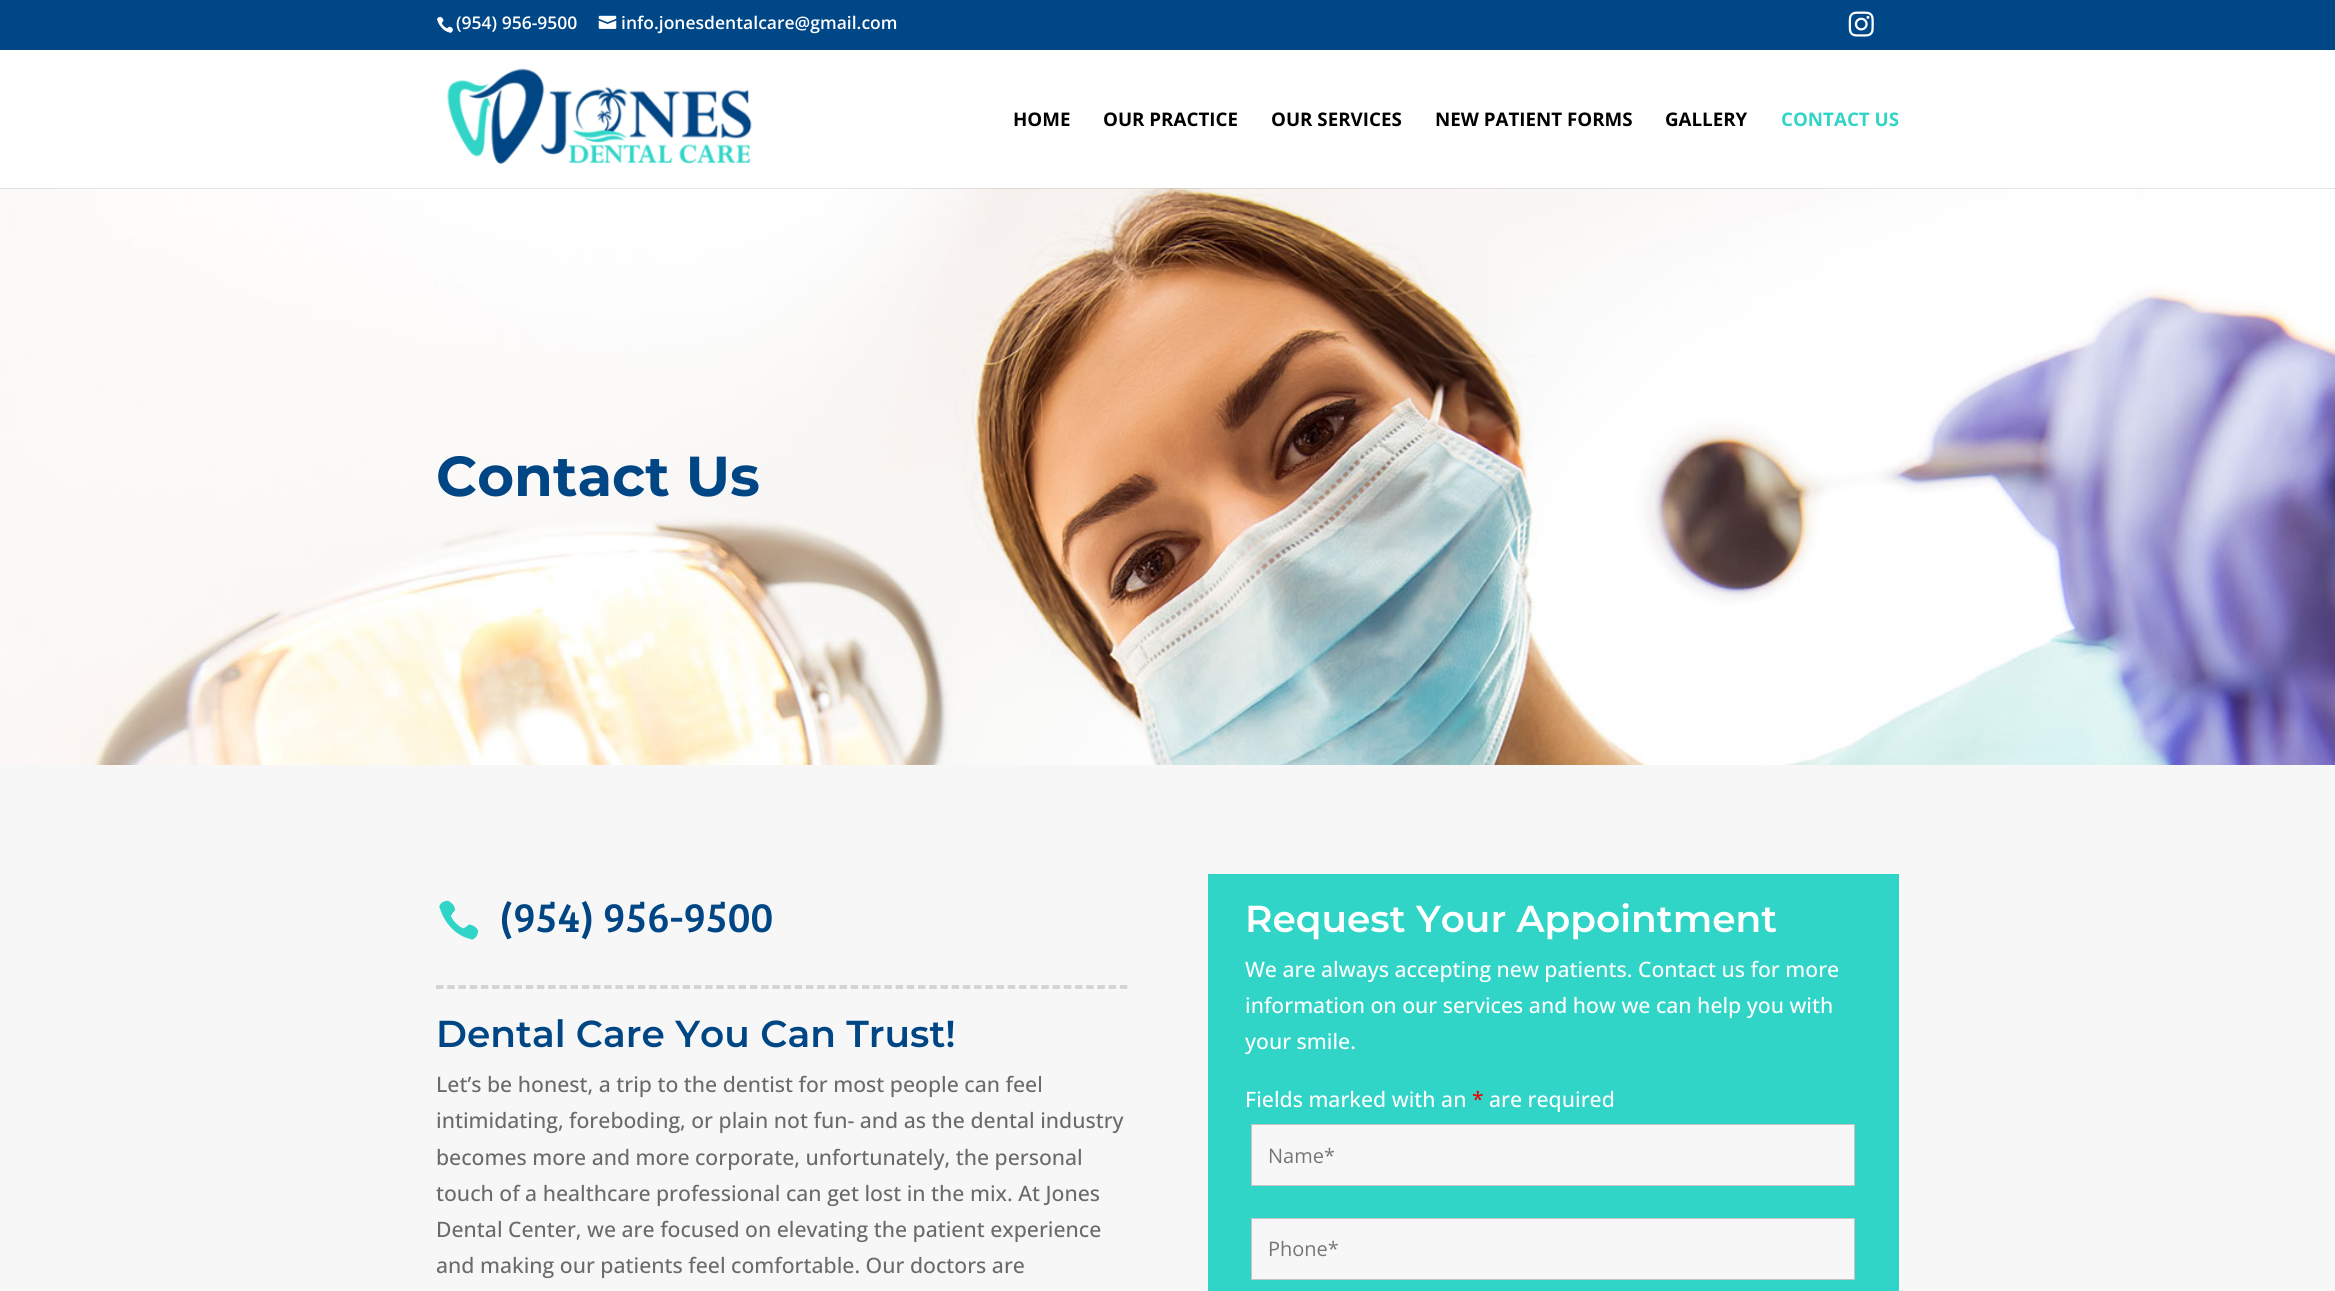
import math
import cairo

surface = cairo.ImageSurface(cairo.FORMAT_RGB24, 2335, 1291)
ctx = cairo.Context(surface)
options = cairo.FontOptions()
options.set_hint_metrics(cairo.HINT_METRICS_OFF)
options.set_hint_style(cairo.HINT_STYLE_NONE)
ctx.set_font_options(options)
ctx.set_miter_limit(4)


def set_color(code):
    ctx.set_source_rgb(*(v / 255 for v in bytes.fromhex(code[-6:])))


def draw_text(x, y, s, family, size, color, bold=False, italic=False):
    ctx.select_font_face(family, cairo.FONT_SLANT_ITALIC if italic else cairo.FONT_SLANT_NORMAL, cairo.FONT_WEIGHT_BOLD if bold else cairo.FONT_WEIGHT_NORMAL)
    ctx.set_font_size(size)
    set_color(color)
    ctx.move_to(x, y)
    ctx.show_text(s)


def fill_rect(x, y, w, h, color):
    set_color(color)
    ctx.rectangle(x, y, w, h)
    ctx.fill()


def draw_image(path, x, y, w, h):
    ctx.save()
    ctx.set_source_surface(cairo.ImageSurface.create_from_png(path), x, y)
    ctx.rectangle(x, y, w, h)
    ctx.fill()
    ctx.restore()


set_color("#ffffff")
ctx.paint()
fill_rect(0, 0, 2335, 50, "#004788")
draw_image("assets/img1.png", 437, 16, 16, 17)
draw_text(456, 29, "(954) 956-9500", "Open Sans SemiBold", 17.5, "#ffffff")
draw_image("assets/img2.png", 598, 15, 19, 14)
draw_text(621, 29, "info.jonesdentalcare@gmail.com", "Open Sans SemiBold", 17.5, "#ffffff")
draw_image("assets/img3.png", 1848, 11, 26, 26)
draw_image("assets/img5.png", 0, 188, 2335, 577)
ctx.set_source_rgba(0, 0, 0, 0.1)
ctx.rectangle(0, 188, 2335, 1)
ctx.fill()
draw_image("assets/img4.png", 447, 68, 305, 96)
draw_text(1013, 126, "HOME", "Open Sans", 18.75, "#000000", bold=True)
draw_text(1103, 126, "OUR PRACTICE", "Open Sans", 18.75, "#000000", bold=True)
draw_text(1271, 126, "OUR SERVICES", "Open Sans", 18.75, "#000000", bold=True)
draw_text(1435, 126, "NEW PATIENT FORMS", "Open Sans", 18.75, "#000000", bold=True)
draw_text(1665, 126, "GALLERY", "Open Sans", 18.75, "#000000", bold=True)
draw_text(1781, 126, "CONTACT US", "Open Sans", 18.75, "#30d5c8", bold=True)
draw_text(436, 496, "Contact Us", "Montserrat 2 Thin", 56.25, "#004684")
fill_rect(0, 765, 2335, 526, "#f7f7f7")
draw_image("assets/img6.png", 439, 900, 40, 40)
draw_text(499, 932, "(954) 956-9500", "Bree Serif", 42.5, "#004684")
ctx.new_path()
ctx.move_to(436, 987)
ctx.line_to(1127.5, 987)
set_color("#d3d3d3")
ctx.set_line_width(3.8)
ctx.set_dash([7.5, 3.71])
ctx.stroke()
draw_text(436, 1047, "Dental Care You Can Trust!", "Montserrat Thin", 37.5, "#004684")
draw_text(436, 1092, "Let’s be honest, a trip to the dentist for most people can feel", "Open Sans Medium", 21.25, "#6a6a6a")
draw_text(436, 1128, "intimidating, foreboding, or plain not fun- and as the dental industry", "Open Sans Medium", 21.25, "#6a6a6a")
draw_text(436, 1165, "becomes more and more corporate, unfortunately, the personal", "Open Sans Medium", 21.25, "#6a6a6a")
draw_text(436, 1201, "touch of a healthcare professional can get lost in the mix. At Jones", "Open Sans Medium", 21.25, "#6a6a6a")
draw_text(436, 1237, "Dental Center, we are focused on elevating the patient experience", "Open Sans Medium", 21.25, "#6a6a6a")
draw_text(436, 1273, "and making our patients feel comfortable. Our doctors are", "Open Sans Medium", 21.25, "#6a6a6a")
fill_rect(1208, 874, 691, 417, "#30d5c7")
draw_text(1245, 932, "Request Your Appointment", "Montserrat Thin", 37.5, "#ffffff")
draw_text(1245, 977, "We are always accepting new patients. Contact us for more", "Open Sans Medium", 21.25, "#ffffff")
draw_text(1245, 1013, "information on our services and how we can help you with", "Open Sans Medium", 21.25, "#ffffff")
draw_text(1245, 1049, "your smile.", "Open Sans Medium", 21.25, "#ffffff")
draw_text(1245, 1107, "Fields marked with an", "Open Sans Medium", 21.25, "#ffffff")
draw_text(1472, 1107, "*", "Open Sans Medium", 21.25, "#e80000")
draw_text(1489, 1107, "are required", "Open Sans Medium", 21.25, "#ffffff")
set_color("#f7f7f7")
ctx.rectangle(1251.5, 1124.5, 603, 61)
ctx.fill_preserve()
set_color("#c4c4c4")
ctx.set_line_width(1)
ctx.set_dash([])
ctx.stroke()
draw_text(1268, 1163, "Name*", "Open Sans", 20, "#757575")
set_color("#f7f7f7")
ctx.rectangle(1251.5, 1218.5, 603, 61)
ctx.fill_preserve()
set_color("#c4c4c4")
ctx.stroke()
draw_text(1268, 1256, "Phone*", "Open Sans", 20, "#757575")
surface.write_to_png("output.png")
